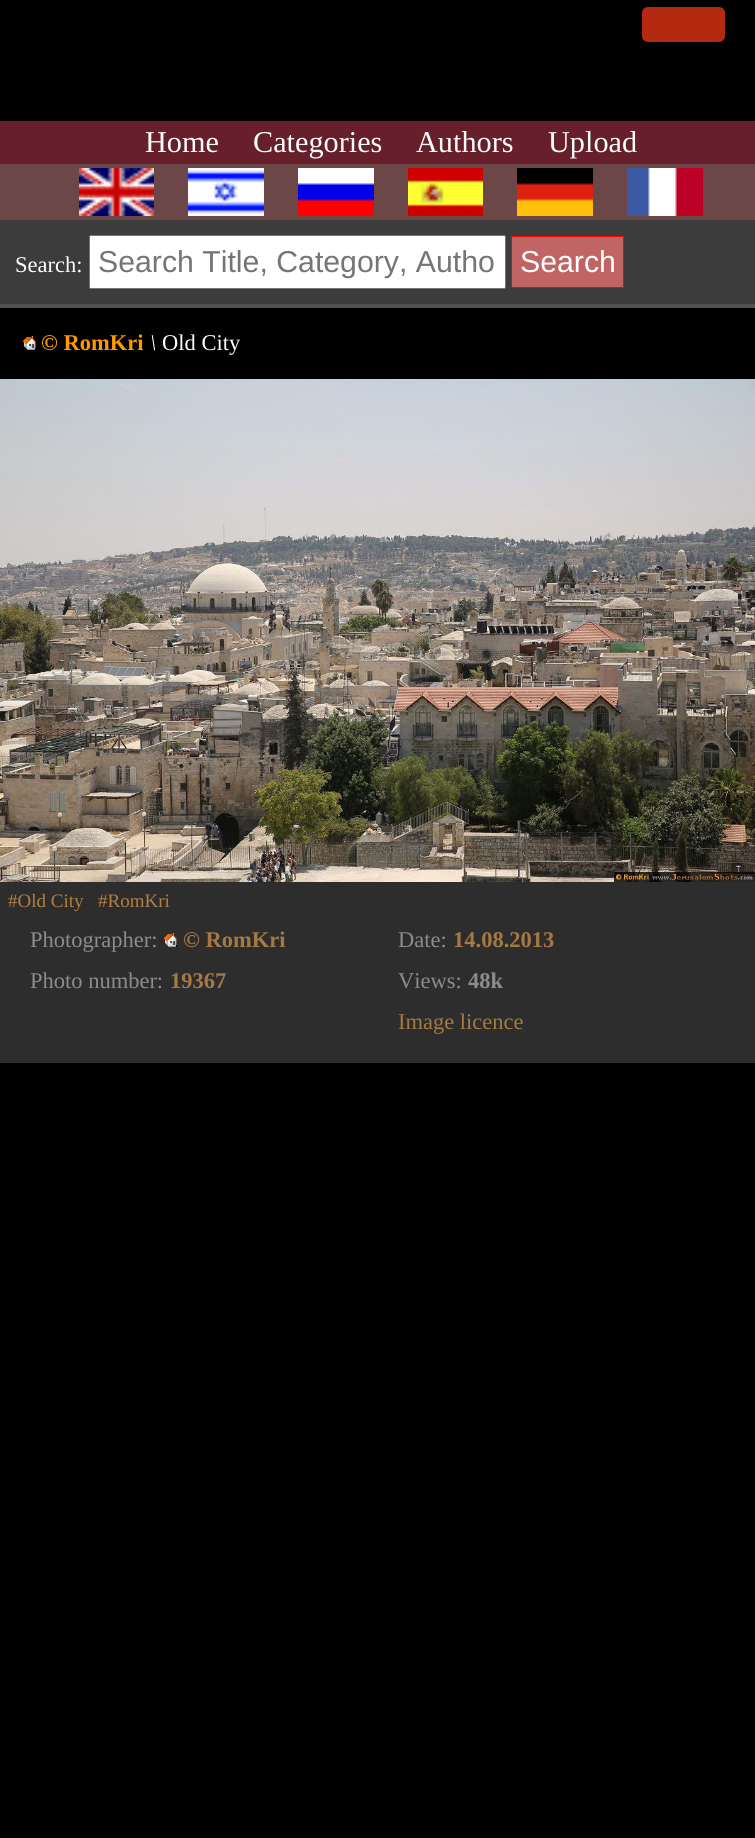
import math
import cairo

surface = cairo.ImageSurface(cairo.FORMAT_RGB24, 755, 1838)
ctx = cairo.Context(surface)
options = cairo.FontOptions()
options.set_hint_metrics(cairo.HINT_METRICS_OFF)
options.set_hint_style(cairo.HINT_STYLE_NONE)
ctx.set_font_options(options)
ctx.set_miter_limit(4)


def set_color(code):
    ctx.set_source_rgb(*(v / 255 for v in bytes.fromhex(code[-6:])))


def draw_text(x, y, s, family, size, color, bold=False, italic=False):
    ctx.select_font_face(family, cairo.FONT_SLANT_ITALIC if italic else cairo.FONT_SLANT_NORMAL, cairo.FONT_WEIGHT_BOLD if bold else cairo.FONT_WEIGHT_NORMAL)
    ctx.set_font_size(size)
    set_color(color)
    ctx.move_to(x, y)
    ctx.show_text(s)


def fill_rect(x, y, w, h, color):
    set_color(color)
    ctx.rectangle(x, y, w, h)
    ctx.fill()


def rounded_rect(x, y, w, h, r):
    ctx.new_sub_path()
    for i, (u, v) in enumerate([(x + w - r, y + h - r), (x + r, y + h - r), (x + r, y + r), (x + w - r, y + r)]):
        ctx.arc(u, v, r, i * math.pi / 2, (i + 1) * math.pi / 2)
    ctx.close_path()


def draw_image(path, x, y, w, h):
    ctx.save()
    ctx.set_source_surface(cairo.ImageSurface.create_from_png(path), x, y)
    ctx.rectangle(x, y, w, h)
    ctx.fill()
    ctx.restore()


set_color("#000000")
ctx.paint()
set_color("#b42a10")
rounded_rect(642, 7, 83, 35, 6)
ctx.fill()
fill_rect(0, 121, 755, 43, "#671f2c")
draw_text(145, 152, "Home", "Liberation Serif", 30.25, "#ffffff")
draw_text(253, 152, "Categories", "Liberation Serif", 30.25, "#ffffff")
draw_text(416, 152, "Authors", "Liberation Serif", 30.25, "#ffffff")
draw_text(548, 152, "Upload", "Liberation Serif", 30.25, "#ffffff")
fill_rect(0, 164, 755, 56, "#6b4747")
draw_image("assets/img1.png", 79, 168, 75, 48)
draw_image("assets/img2.png", 188, 168, 76, 48)
draw_image("assets/img3.png", 298, 168, 76, 48)
draw_image("assets/img4.png", 408, 168, 75, 48)
draw_image("assets/img5.png", 517, 168, 76, 48)
draw_image("assets/img6.png", 627, 168, 76, 48)
fill_rect(0, 220, 755, 84, "#3c3c3c")
draw_text(15, 272, "Search:", "Liberation Serif", 22.5, "#ffffff")
rounded_rect(89.5, 235.5, 416, 53, 1.5)
ctx.fill_preserve()
set_color("#767676")
ctx.set_line_width(1)
ctx.stroke()
draw_text(98, 272, "Search Title, Category, Autho", "Liberation Sans", 30.25, "#757575")
set_color("#c16464")
ctx.rectangle(511.5, 236.5, 112, 51)
ctx.fill_preserve()
set_color("#ff0000")
ctx.stroke()
draw_text(520, 272, "Search", "Liberation Sans", 30.25, "#ffffff")
fill_rect(0, 304, 755, 4, "#525252")
draw_image("assets/img7.png", 23, 336, 13, 14)
draw_text(41, 350, "© RomKri", "Liberation Serif", 22.5, "#ff9900", bold=True)
draw_text(150, 350, "\\", "Liberation Serif", 22.5, "#ffffff", italic=True)
draw_text(162, 350, "Old City", "Liberation Serif", 22.5, "#ffffff")
draw_image("assets/img8.png", 0, 379, 755, 503)
fill_rect(0, 882, 755, 181, "#2d2d2d")
draw_text(8, 907, "#Old City", "Liberation Serif", 19, "#b17f40")
draw_text(98, 907, "#RomKri", "Liberation Serif", 19, "#b17f40")
draw_text(30, 947, "Photographer:", "Liberation Serif", 22.5, "#8c8c8c")
draw_image("assets/img9.png", 164, 933, 13, 14)
draw_text(183, 947, "© RomKri", "Liberation Serif", 22.5, "#a57943", bold=True)
draw_text(398, 947, "Date:", "Liberation Serif", 22.5, "#8c8c8c")
draw_text(453, 947, "14.08.2013", "Liberation Serif", 22.5, "#a57943", bold=True)
draw_text(30, 988, "Photo number:", "Liberation Serif", 22.5, "#8c8c8c")
draw_text(170, 988, "19367", "Liberation Serif", 22.5, "#a57943", bold=True)
draw_text(398, 988, "Views:", "Liberation Serif", 22.5, "#8c8c8c")
draw_text(468, 988, "48k", "Liberation Serif", 22.5, "#8c8c8c", bold=True)
draw_text(398, 1029, "Image licence", "Liberation Serif", 22.5, "#a57943")
surface.write_to_png("output.png")
